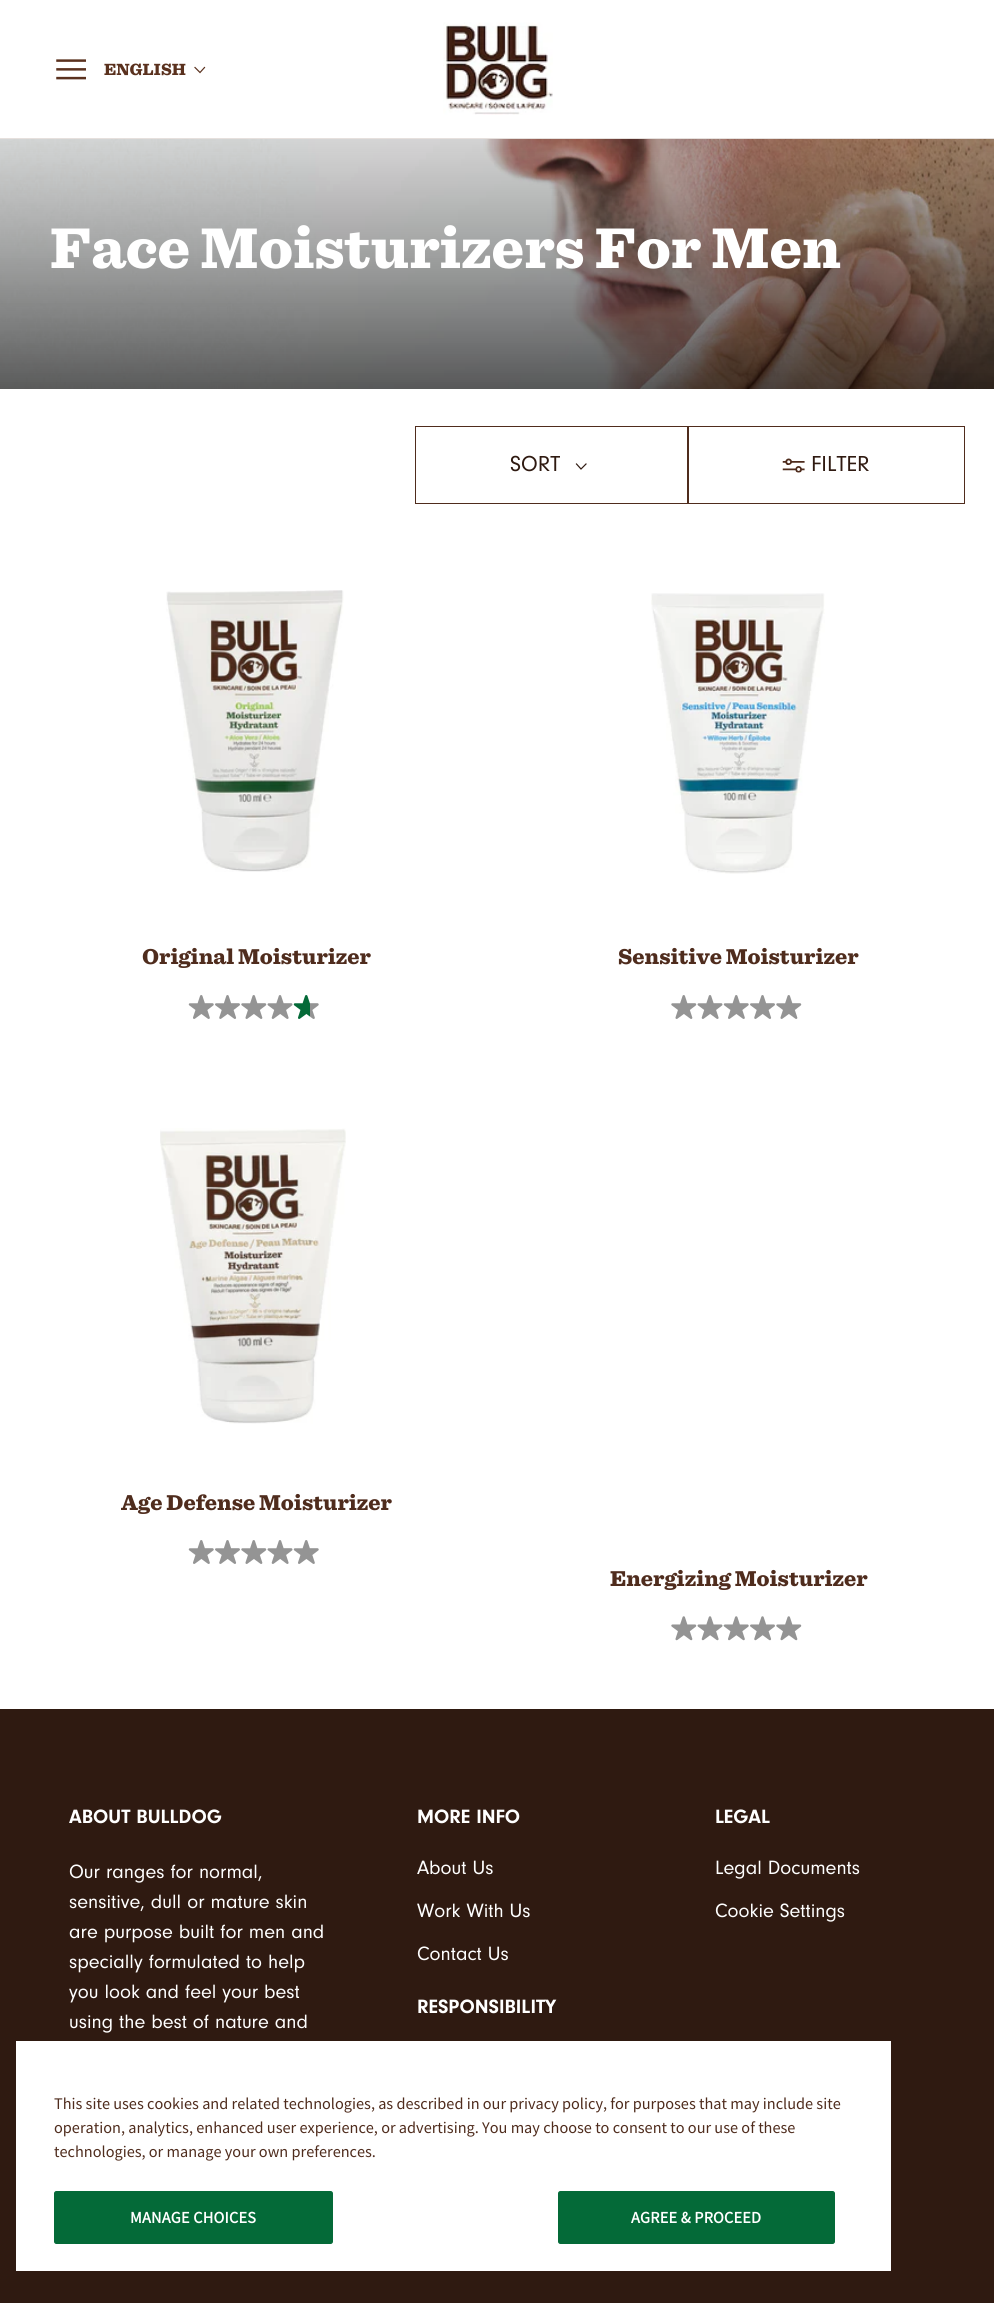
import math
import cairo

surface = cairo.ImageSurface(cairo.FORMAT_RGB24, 994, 2303)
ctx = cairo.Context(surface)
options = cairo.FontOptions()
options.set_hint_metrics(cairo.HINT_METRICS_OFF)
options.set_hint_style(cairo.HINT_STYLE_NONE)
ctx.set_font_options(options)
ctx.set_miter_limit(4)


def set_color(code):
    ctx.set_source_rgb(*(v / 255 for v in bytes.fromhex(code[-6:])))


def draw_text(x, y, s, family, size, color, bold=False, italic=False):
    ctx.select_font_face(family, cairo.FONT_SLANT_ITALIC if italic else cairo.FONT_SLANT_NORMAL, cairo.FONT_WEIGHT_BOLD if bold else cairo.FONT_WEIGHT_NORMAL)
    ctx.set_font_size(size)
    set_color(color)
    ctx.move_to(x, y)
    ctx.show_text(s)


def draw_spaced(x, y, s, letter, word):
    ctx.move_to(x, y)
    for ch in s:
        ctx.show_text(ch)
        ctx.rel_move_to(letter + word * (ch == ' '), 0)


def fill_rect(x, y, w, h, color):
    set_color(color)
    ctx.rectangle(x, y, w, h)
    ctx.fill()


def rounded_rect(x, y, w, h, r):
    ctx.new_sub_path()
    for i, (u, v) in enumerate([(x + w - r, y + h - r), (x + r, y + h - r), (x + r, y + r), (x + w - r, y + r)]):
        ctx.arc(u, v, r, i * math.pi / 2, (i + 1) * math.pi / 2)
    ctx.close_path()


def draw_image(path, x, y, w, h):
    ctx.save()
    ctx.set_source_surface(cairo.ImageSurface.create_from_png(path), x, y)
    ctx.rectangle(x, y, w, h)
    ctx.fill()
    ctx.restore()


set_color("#ffffff")
ctx.paint()
fill_rect(0, 138, 994, 1, "#e6e0dd")
draw_image("assets/img1.png", 56, 59, 30, 21)
draw_text(104, 75, "ENGLISH", "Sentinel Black", 17, "#5a311e")
ctx.new_path()
ctx.move_to(204.5, 67.5)
ctx.line_to(200, 72.5)
ctx.line_to(195, 67.5)
ctx.set_line_width(1.2)
ctx.set_line_cap(cairo.LINE_CAP_SQUARE)
ctx.stroke()
draw_image("assets/img2.png", 443, 22, 110, 93)
draw_image("assets/img3.png", 0, 139, 994, 250)
draw_text(50, 268, "Face Moisturizers For Men", "Sentinel Black", 60, "#ffffff")
ctx.rectangle(415.5, 426.5, 272, 77)
set_color("#4f2c1d")
ctx.set_line_width(1)
ctx.set_line_cap(cairo.LINE_CAP_BUTT)
ctx.stroke()
draw_text(510, 471, "SORT", "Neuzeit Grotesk", 22.5, "#2f1a11")
ctx.new_path()
ctx.move_to(586, 464)
ctx.line_to(581, 469)
ctx.line_to(576.5, 464)
ctx.set_line_width(1.2)
ctx.set_line_cap(cairo.LINE_CAP_SQUARE)
ctx.stroke()
ctx.rectangle(688.5, 426.5, 276, 77)
set_color("#4f2c1d")
ctx.set_line_width(1)
ctx.set_line_cap(cairo.LINE_CAP_BUTT)
ctx.stroke()
draw_image("assets/img4.png", 782, 458, 23, 15)
draw_text(811, 471, "FILTER", "Neuzeit Grotesk", 22.5, "#2f1a11")
draw_image("assets/img5.png", 166, 590, 178, 282)
draw_text(142, 964, "Original Moisturizer", "Sentinel Black", 22.5, "#4f2c1d")
draw_image("assets/img6.png", 188, 995, 26, 24)
draw_image("assets/img7.png", 215, 995, 25, 24)
draw_image("assets/img8.png", 241, 995, 26, 24)
draw_image("assets/img9.png", 267, 995, 26, 24)
draw_image("assets/img10.png", 293, 995, 26, 24)
draw_image("assets/img11.png", 651, 593, 174, 281)
draw_text(618, 964, "Sensitive Moisturizer", "Sentinel Black", 22.5, "#4f2c1d")
draw_image("assets/img8.png", 671, 995, 26, 24)
draw_image("assets/img9.png", 697, 995, 26, 24)
draw_image("assets/img6.png", 723, 995, 26, 24)
draw_image("assets/img7.png", 750, 995, 25, 24)
draw_image("assets/img8.png", 776, 995, 26, 24)
draw_image("assets/img12.png", 160, 1128, 186, 296)
draw_text(121, 1510, "Age Defense Moisturizer", "Sentinel Black", 22.5, "#4f2c1d")
draw_image("assets/img6.png", 188, 1540, 26, 24)
draw_image("assets/img7.png", 215, 1540, 25, 24)
draw_image("assets/img8.png", 241, 1540, 26, 24)
draw_image("assets/img9.png", 267, 1540, 26, 24)
draw_image("assets/img6.png", 293, 1540, 26, 24)
draw_text(610, 1586, "Energizing Moisturizer", "Sentinel Black", 22.5, "#4f2c1d")
draw_image("assets/img13.png", 671, 1616, 26, 25)
draw_image("assets/img14.png", 697, 1616, 26, 25)
draw_image("assets/img15.png", 723, 1616, 26, 25)
draw_image("assets/img16.png", 750, 1616, 25, 25)
draw_image("assets/img13.png", 776, 1616, 26, 25)
fill_rect(0, 1709, 994, 594, "#2f1a11")
draw_text(69, 1823, "ABOUT BULLDOG", "Neuzeit Grotesk", 20, "#ffffff", bold=True)
draw_text(69, 1878, "Our ranges for normal,", "Neuzeit Grotesk", 20, "#ffffff")
draw_text(69, 1908, "sensitive, dull or mature skin", "Neuzeit Grotesk", 20, "#ffffff")
draw_text(69, 1938, "are purpose built for men and", "Neuzeit Grotesk", 20, "#ffffff")
draw_text(69, 1968, "specially formulated to help", "Neuzeit Grotesk", 20, "#ffffff")
draw_text(69, 1998, "you look and feel your best", "Neuzeit Grotesk", 20, "#ffffff")
draw_text(69, 2028, "using the best of nature and", "Neuzeit Grotesk", 20, "#ffffff")
draw_text(417, 1823, "MORE INFO", "Neuzeit Grotesk", 20, "#ffffff", bold=True)
draw_text(417, 1874, "About Us", "Neuzeit Grotesk", 20, "#ffffff")
draw_text(417, 1917, "Work With Us", "Neuzeit Grotesk", 20, "#ffffff")
draw_text(417, 1960, "Contact Us", "Neuzeit Grotesk", 20, "#ffffff")
draw_text(417, 2013, "RESPONSIBILITY", "Neuzeit Grotesk", 20, "#ffffff", bold=True)
draw_text(715, 1823, "LEGAL", "Neuzeit Grotesk", 20, "#ffffff", bold=True)
draw_text(715, 1874, "Legal Documents", "Neuzeit Grotesk", 20, "#ffffff")
draw_text(715, 1917, "Cookie Settings", "Neuzeit Grotesk", 20, "#ffffff")
fill_rect(16, 2041, 875, 230, "#ffffff")
draw_text(54, 2109, "This site uses cookies and related technologies, as described in our privacy policy, for purposes that may include site", "Source Sans Pro", 16.25, "#4f2c1d")
draw_text(54, 2133, "operation, analytics, enhanced user experience, or advertising. You may choose to consent to our use of these", "Source Sans Pro", 16.25, "#4f2c1d")
draw_text(54, 2157, "technologies, or manage your own preferences.", "Source Sans Pro", 16.25, "#4f2c1d")
set_color("#046a38")
rounded_rect(54.5, 2191.5, 278, 52, 2)
ctx.fill_preserve()
ctx.stroke()
ctx.select_font_face("Source Sans Pro", cairo.FONT_SLANT_NORMAL, cairo.FONT_WEIGHT_BOLD)
set_color("#ffffff")
draw_spaced(130, 2223, "MANAGE CHOICES", 0.2, 0)
set_color("#046a38")
rounded_rect(558.5, 2191.5, 276, 52, 2)
ctx.fill_preserve()
ctx.stroke()
set_color("#ffffff")
draw_spaced(631, 2223, "AGREE & PROCEED", 0.2, 0)
surface.write_to_png("output.png")
